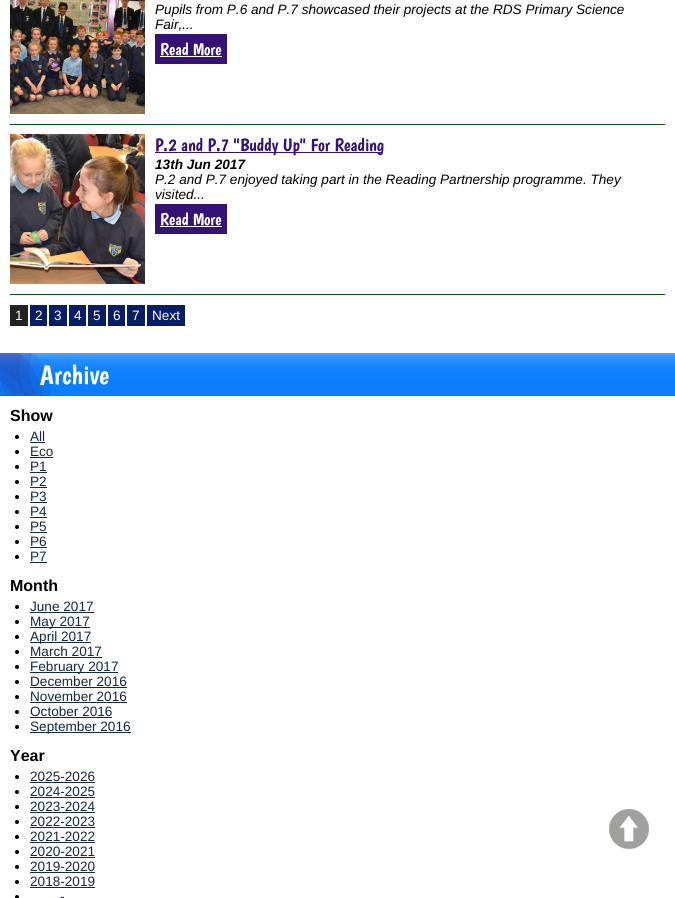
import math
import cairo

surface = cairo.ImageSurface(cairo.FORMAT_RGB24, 675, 898)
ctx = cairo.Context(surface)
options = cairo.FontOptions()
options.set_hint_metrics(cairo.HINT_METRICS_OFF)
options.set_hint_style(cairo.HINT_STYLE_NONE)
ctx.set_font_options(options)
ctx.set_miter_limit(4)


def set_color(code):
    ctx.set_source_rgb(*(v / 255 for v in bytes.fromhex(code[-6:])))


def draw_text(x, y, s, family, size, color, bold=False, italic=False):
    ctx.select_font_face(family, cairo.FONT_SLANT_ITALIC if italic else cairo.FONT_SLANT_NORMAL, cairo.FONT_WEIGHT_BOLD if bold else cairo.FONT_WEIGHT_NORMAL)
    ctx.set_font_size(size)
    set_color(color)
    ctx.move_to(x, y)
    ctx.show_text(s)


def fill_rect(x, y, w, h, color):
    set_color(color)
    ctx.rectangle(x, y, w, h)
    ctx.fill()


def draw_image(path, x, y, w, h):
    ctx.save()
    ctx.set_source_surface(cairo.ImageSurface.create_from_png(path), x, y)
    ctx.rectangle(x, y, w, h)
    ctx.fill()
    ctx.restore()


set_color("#ffffff")
ctx.paint()
fill_rect(10, 124, 655, 1, "#094d1a")
draw_image("assets/img1.png", 10, 0, 135, 114)
draw_text(155, 14, "Pupils from P.6 and P.7 showcased their projects at the RDS Primary Science", "Liberation Sans", 13.6, "#000000", italic=True)
draw_text(155, 29, "Fair,...", "Liberation Sans", 13.6, "#000000", italic=True)
fill_rect(155, 34, 72, 30, "#351274")
draw_text(160, 55, "Read More", "Boogaloo", 17, "#ffffff")
fill_rect(160, 56, 62, 1, "#ffffff")
fill_rect(10, 294, 655, 1, "#094d1a")
draw_image("assets/img2.png", 10, 134, 135, 150)
fill_rect(155, 152, 228, 1, "#351274")
draw_text(155, 151, "P.2 and P.7 \"Buddy Up\" For Reading", "Boogaloo", 18, "#351274")
draw_text(155, 169, "13th Jun 2017", "Liberation Sans", 13.6, "#000000", bold=True, italic=True)
draw_text(155, 184, "P.2 and P.7 enjoyed taking part in the Reading Partnership programme. They", "Liberation Sans", 13.6, "#000000", italic=True)
draw_text(155, 199, "visited...", "Liberation Sans", 13.6, "#000000", italic=True)
fill_rect(155, 204, 72, 30, "#351274")
draw_text(160, 225, "Read More", "Boogaloo", 17, "#ffffff")
fill_rect(160, 226, 62, 1, "#ffffff")
fill_rect(10, 305, 18, 21, "#222222")
draw_text(15, 320, "1", "Liberation Sans", 13.6, "#ffffff")
fill_rect(30, 305, 17, 21, "#061e66")
draw_text(35, 320, "2", "Liberation Sans", 13.6, "#ffffff")
fill_rect(49, 305, 18, 21, "#061e66")
draw_text(54, 320, "3", "Liberation Sans", 13.6, "#ffffff")
fill_rect(69, 305, 17, 21, "#061e66")
draw_text(74, 320, "4", "Liberation Sans", 13.6, "#ffffff")
fill_rect(88, 305, 18, 21, "#061e66")
draw_text(93, 320, "5", "Liberation Sans", 13.6, "#ffffff")
fill_rect(108, 305, 17, 21, "#061e66")
draw_text(113, 320, "6", "Liberation Sans", 13.6, "#ffffff")
fill_rect(127, 305, 18, 21, "#061e66")
draw_text(132, 320, "7", "Liberation Sans", 13.6, "#ffffff")
fill_rect(147, 305, 38, 21, "#061e66")
draw_text(152, 320, "Next", "Liberation Sans", 13.6, "#ffffff")
draw_image("assets/img3.png", 0, 353, 675, 43)
draw_text(40, 384, "Archive", "Boogaloo", 27, "#ffffff")
draw_text(10, 421, "Show", "Liberation Sans", 16, "#000000", bold=True)
ctx.new_path()
ctx.arc(17, 437, 2, 0, 2 * math.pi)
ctx.fill()
draw_text(30, 441, "All", "Liberation Sans", 13.6, "#152941")
fill_rect(30, 442, 15, 1, "#152941")
set_color("#000000")
ctx.new_path()
ctx.arc(17, 452, 2, 0, 2 * math.pi)
ctx.fill()
draw_text(30, 456, "Eco", "Liberation Sans", 13.6, "#152941")
fill_rect(30, 457, 23, 1, "#152941")
set_color("#000000")
ctx.new_path()
ctx.arc(17, 467, 2, 0, 2 * math.pi)
ctx.fill()
draw_text(30, 471, "P1", "Liberation Sans", 13.6, "#152941")
fill_rect(30, 472, 17, 1, "#152941")
set_color("#000000")
ctx.new_path()
ctx.arc(17, 482, 2, 0, 2 * math.pi)
ctx.fill()
draw_text(30, 486, "P2", "Liberation Sans", 13.6, "#152941")
fill_rect(30, 487, 17, 1, "#152941")
set_color("#000000")
ctx.new_path()
ctx.arc(17, 497, 2, 0, 2 * math.pi)
ctx.fill()
draw_text(30, 501, "P3", "Liberation Sans", 13.6, "#152941")
fill_rect(30, 502, 17, 1, "#152941")
set_color("#000000")
ctx.new_path()
ctx.arc(17, 512, 2, 0, 2 * math.pi)
ctx.fill()
draw_text(30, 516, "P4", "Liberation Sans", 13.6, "#152941")
fill_rect(30, 517, 17, 1, "#152941")
set_color("#000000")
ctx.new_path()
ctx.arc(17, 527, 2, 0, 2 * math.pi)
ctx.fill()
draw_text(30, 531, "P5", "Liberation Sans", 13.6, "#152941")
fill_rect(30, 532, 17, 1, "#152941")
set_color("#000000")
ctx.new_path()
ctx.arc(17, 542, 2, 0, 2 * math.pi)
ctx.fill()
draw_text(30, 546, "P6", "Liberation Sans", 13.6, "#152941")
fill_rect(30, 547, 17, 1, "#152941")
set_color("#000000")
ctx.new_path()
ctx.arc(17, 557, 2, 0, 2 * math.pi)
ctx.fill()
draw_text(30, 561, "P7", "Liberation Sans", 13.6, "#152941")
fill_rect(30, 562, 17, 1, "#152941")
draw_text(10, 591, "Month", "Liberation Sans", 16, "#000000", bold=True)
ctx.new_path()
ctx.arc(17, 607, 2, 0, 2 * math.pi)
ctx.fill()
draw_text(30, 611, "June 2017", "Liberation Sans", 13.6, "#152941")
fill_rect(30, 612, 64, 1, "#152941")
set_color("#000000")
ctx.new_path()
ctx.arc(17, 622, 2, 0, 2 * math.pi)
ctx.fill()
fill_rect(30, 627, 60, 1, "#152941")
draw_text(30, 626, "May 2017", "Liberation Sans", 13.6, "#152941")
set_color("#000000")
ctx.new_path()
ctx.arc(17, 637, 2, 0, 2 * math.pi)
ctx.fill()
fill_rect(30, 642, 61, 1, "#152941")
draw_text(30, 641, "April 2017", "Liberation Sans", 13.6, "#152941")
set_color("#000000")
ctx.new_path()
ctx.arc(17, 652, 2, 0, 2 * math.pi)
ctx.fill()
draw_text(30, 656, "March 2017", "Liberation Sans", 13.6, "#152941")
fill_rect(30, 657, 72, 1, "#152941")
set_color("#000000")
ctx.new_path()
ctx.arc(17, 667, 2, 0, 2 * math.pi)
ctx.fill()
fill_rect(30, 672, 88, 1, "#152941")
draw_text(30, 671, "February 2017", "Liberation Sans", 13.6, "#152941")
set_color("#000000")
ctx.new_path()
ctx.arc(17, 682, 2, 0, 2 * math.pi)
ctx.fill()
draw_text(30, 686, "December 2016", "Liberation Sans", 13.6, "#152941")
fill_rect(30, 687, 97, 1, "#152941")
set_color("#000000")
ctx.new_path()
ctx.arc(17, 697, 2, 0, 2 * math.pi)
ctx.fill()
draw_text(30, 701, "November 2016", "Liberation Sans", 13.6, "#152941")
fill_rect(30, 702, 97, 1, "#152941")
set_color("#000000")
ctx.new_path()
ctx.arc(17, 712, 2, 0, 2 * math.pi)
ctx.fill()
draw_text(30, 716, "October 2016", "Liberation Sans", 13.6, "#152941")
fill_rect(30, 717, 82, 1, "#152941")
set_color("#000000")
ctx.new_path()
ctx.arc(17, 727, 2, 0, 2 * math.pi)
ctx.fill()
fill_rect(30, 732, 101, 1, "#152941")
draw_text(30, 731, "September 2016", "Liberation Sans", 13.6, "#152941")
draw_text(10, 761, "Year", "Liberation Sans", 16, "#000000", bold=True)
ctx.new_path()
ctx.arc(17, 777, 2, 0, 2 * math.pi)
ctx.fill()
draw_text(30, 781, "2025-2026", "Liberation Sans", 13.6, "#152941")
fill_rect(30, 782, 65, 1, "#152941")
set_color("#000000")
ctx.new_path()
ctx.arc(17, 792, 2, 0, 2 * math.pi)
ctx.fill()
draw_text(30, 796, "2024-2025", "Liberation Sans", 13.6, "#152941")
fill_rect(30, 797, 65, 1, "#152941")
set_color("#000000")
ctx.new_path()
ctx.arc(17, 807, 2, 0, 2 * math.pi)
ctx.fill()
draw_text(30, 811, "2023-2024", "Liberation Sans", 13.6, "#152941")
fill_rect(30, 812, 65, 1, "#152941")
set_color("#000000")
ctx.new_path()
ctx.arc(17, 822, 2, 0, 2 * math.pi)
ctx.fill()
draw_text(30, 826, "2022-2023", "Liberation Sans", 13.6, "#152941")
fill_rect(30, 827, 65, 1, "#152941")
set_color("#000000")
ctx.new_path()
ctx.arc(17, 837, 2, 0, 2 * math.pi)
ctx.fill()
draw_text(30, 841, "2021-2022", "Liberation Sans", 13.6, "#152941")
fill_rect(30, 842, 65, 1, "#152941")
set_color("#000000")
ctx.new_path()
ctx.arc(17, 852, 2, 0, 2 * math.pi)
ctx.fill()
draw_text(30, 856, "2020-2021", "Liberation Sans", 13.6, "#152941")
fill_rect(30, 857, 65, 1, "#152941")
set_color("#000000")
ctx.new_path()
ctx.arc(17, 867, 2, 0, 2 * math.pi)
ctx.fill()
draw_text(30, 871, "2019-2020", "Liberation Sans", 13.6, "#152941")
fill_rect(30, 872, 65, 1, "#152941")
set_color("#000000")
ctx.new_path()
ctx.arc(17, 882, 2, 0, 2 * math.pi)
ctx.fill()
draw_text(30, 886, "2018-2019", "Liberation Sans", 13.6, "#152941")
fill_rect(30, 887, 65, 1, "#152941")
set_color("#000000")
ctx.new_path()
ctx.arc(17, 897, 2, 0, 2 * math.pi)
ctx.fill()
draw_text(60, 901, "-", "Liberation Sans", 13.6, "#152941")
draw_image("assets/img4.png", 609, 809, 40, 40)
surface.write_to_png("output.png")
